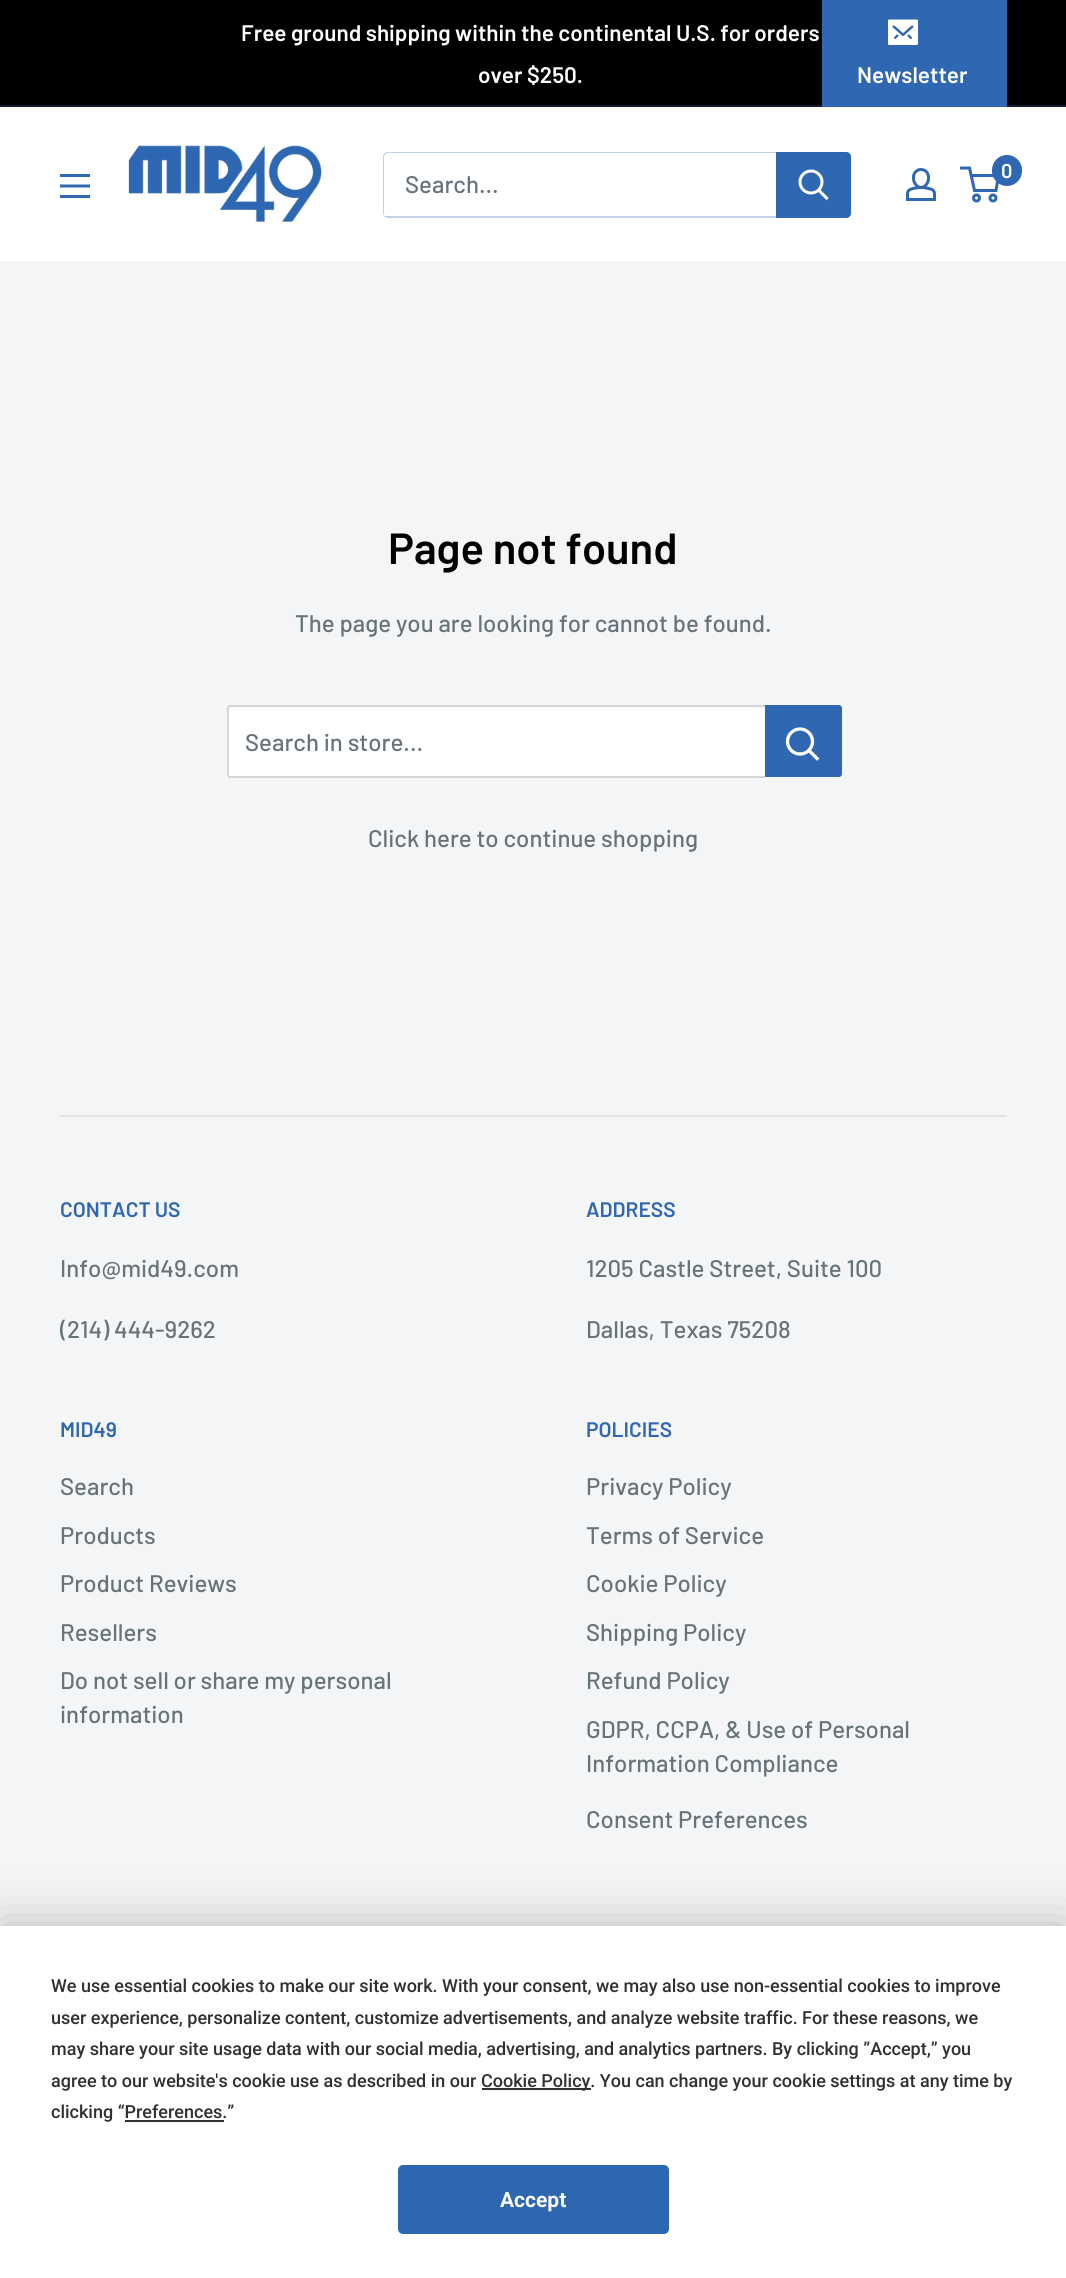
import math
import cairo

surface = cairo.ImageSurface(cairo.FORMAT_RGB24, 1066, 2278)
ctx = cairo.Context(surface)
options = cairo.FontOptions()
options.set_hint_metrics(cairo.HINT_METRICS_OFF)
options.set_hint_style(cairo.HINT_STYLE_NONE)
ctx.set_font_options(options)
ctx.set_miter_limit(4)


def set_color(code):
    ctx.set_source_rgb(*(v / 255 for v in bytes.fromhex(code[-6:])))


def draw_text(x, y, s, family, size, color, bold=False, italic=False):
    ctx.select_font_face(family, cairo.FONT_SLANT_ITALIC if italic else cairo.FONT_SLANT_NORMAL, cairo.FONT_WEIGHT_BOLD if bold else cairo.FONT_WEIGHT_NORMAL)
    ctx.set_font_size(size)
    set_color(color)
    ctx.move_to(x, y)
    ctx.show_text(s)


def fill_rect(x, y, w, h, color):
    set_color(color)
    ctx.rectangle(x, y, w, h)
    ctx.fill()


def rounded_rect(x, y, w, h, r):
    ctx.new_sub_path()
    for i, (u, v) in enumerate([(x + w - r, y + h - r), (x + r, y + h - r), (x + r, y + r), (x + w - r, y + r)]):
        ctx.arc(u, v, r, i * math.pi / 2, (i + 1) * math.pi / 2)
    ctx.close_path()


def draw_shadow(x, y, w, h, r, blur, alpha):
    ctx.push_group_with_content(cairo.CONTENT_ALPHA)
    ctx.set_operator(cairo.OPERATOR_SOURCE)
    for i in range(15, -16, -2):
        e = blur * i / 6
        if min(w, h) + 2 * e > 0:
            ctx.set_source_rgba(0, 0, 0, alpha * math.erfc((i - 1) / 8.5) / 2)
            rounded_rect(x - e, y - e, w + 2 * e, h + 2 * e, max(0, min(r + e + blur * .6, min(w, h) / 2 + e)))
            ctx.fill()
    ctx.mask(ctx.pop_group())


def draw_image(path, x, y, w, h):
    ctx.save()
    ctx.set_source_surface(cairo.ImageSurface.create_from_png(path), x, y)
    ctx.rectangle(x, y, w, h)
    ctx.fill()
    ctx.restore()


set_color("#f3f5f6")
ctx.paint()
fill_rect(0, 0, 1066, 105, "#000000")
fill_rect(0, 105, 1066, 2, "#0e1f35")
draw_text(241, 41, "Free ground shipping within the continental U.S. for orders", "Barlow SemiBold", 22.5, "#ffffff")
draw_text(478, 83, "over $250.", "Barlow SemiBold", 22.5, "#ffffff")
set_color("#2f67b2")
ctx.new_path()
ctx.move_to(822, 105)
ctx.line_to(822, 107)
ctx.line_to(1007, 107)
ctx.line_to(1007, 2)
ctx.line_to(1006, 2)
ctx.line_to(1006, 105)
ctx.close_path()
ctx.fill()
fill_rect(822, 0, 185, 105, "#2f67b2")
draw_image("assets/img1.png", 888, 19, 30, 26)
draw_text(857, 83, "Newsletter", "Barlow SemiBold", 22.5, "#ffffff")
fill_rect(0, 107, 1066, 154, "#ffffff")
draw_image("assets/img2.png", 128, 145, 194, 77)
draw_image("assets/img3.png", 906, 168, 30, 33)
ctx.arc(976.5, 198, 3, 0, 2 * math.pi)
set_color("#2f67b2")
ctx.set_line_width(3)
ctx.stroke()
ctx.arc(993, 198, 3, 0, 2 * math.pi)
ctx.stroke()
ctx.new_path()
ctx.move_to(971, 175.5)
ctx.line_to(998.5, 175.5)
ctx.line_to(996, 190.5)
ctx.line_to(974.5, 190.5)
ctx.line_to(969.5, 168)
ctx.line_to(960, 168)
ctx.stroke()
rounded_rect(992, 155, 30, 31, 15)
ctx.fill()
draw_text(1001, 178, "0", "Barlow SemiBold", 20, "#ffffff")
draw_image("assets/img4.png", 60, 174, 30, 24)
set_color("#c1d1e8")
ctx.new_path()
ctx.move_to(384, 216)
ctx.curve_to(385, 217, 386, 218, 388, 218)
ctx.line_to(846, 218)
ctx.curve_to(849, 218, 851, 216, 851, 213)
ctx.line_to(851, 157)
ctx.curve_to(851, 155, 850, 154, 849, 153)
ctx.line_to(849, 212)
ctx.curve_to(849, 214, 847, 216, 844, 216)
ctx.line_to(386, 216)
ctx.close_path()
ctx.fill()
ctx.new_path()
ctx.move_to(388, 153)
ctx.line_to(849, 153)
ctx.curve_to(848, 152, 847, 152, 846, 152)
ctx.line_to(388, 152)
ctx.curve_to(385, 152, 383, 154, 383, 157)
ctx.line_to(383, 213)
ctx.curve_to(383, 214, 384, 216, 385, 217)
ctx.line_to(384, 214)
ctx.line_to(384, 158)
ctx.curve_to(384, 155, 386, 153, 388, 153)
ctx.close_path()
ctx.fill()
draw_text(405, 193, "Search...", "Barlow Medium", 24, "#677279")
set_color("#2f67b2")
ctx.new_path()
ctx.move_to(776, 152)
ctx.line_to(846, 152)
ctx.curve_to(849, 152, 851, 154, 851, 157)
ctx.line_to(851, 213)
ctx.curve_to(851, 216, 849, 218, 846, 218)
ctx.line_to(776, 218)
ctx.close_path()
ctx.fill()
ctx.new_path()
ctx.move_to(826.5, 198)
ctx.line_to(819, 190.5)
set_color("#ffffff")
ctx.set_line_cap(cairo.LINE_CAP_SQUARE)
ctx.stroke()
ctx.arc(811, 182, 11, 0, 2 * math.pi)
ctx.set_line_cap(cairo.LINE_CAP_BUTT)
ctx.stroke()
draw_text(388, 564, "Page not found", "Barlow SemiBold", 43.5, "#000000")
draw_text(295, 632, "The page you are looking for cannot be found.", "Barlow Medium", 24, "#677279")
set_color("#ffffff")
ctx.new_path()
ctx.move_to(230, 705)
ctx.line_to(765, 705)
ctx.line_to(765, 777)
ctx.line_to(230, 777)
ctx.curve_to(228.5, 777, 227, 775.5, 227, 774)
ctx.line_to(227, 708)
ctx.curve_to(227, 706.5, 228.5, 705, 230, 705)
ctx.close_path()
ctx.fill()
set_color("#f8f8f8")
ctx.new_path()
ctx.move_to(230, 708)
ctx.line_to(765, 708)
ctx.line_to(765, 707)
ctx.line_to(230, 707)
ctx.curve_to(228, 707, 228, 709, 228, 710)
ctx.curve_to(228, 709, 229, 708, 230, 708)
ctx.close_path()
ctx.fill()
fill_rect(228, 705, 537, 2, "#d4d6d8")
fill_rect(228, 776, 537, 2, "#d4d6d8")
fill_rect(227, 707, 2, 69, "#d4d6d8")
draw_text(245, 751, "Search in store...", "Barlow Medium", 24, "#677279")
set_color("#2f67b2")
ctx.new_path()
ctx.move_to(765, 705)
ctx.line_to(839, 705)
ctx.curve_to(840.5, 705, 842, 706.5, 842, 708)
ctx.line_to(842, 774)
ctx.curve_to(842, 775.5, 840.5, 777, 839, 777)
ctx.line_to(765, 777)
ctx.close_path()
ctx.fill()
ctx.new_path()
ctx.move_to(817, 758.5)
ctx.line_to(809, 750.5)
set_color("#ffffff")
ctx.set_line_width(3.3)
ctx.set_line_cap(cairo.LINE_CAP_SQUARE)
ctx.stroke()
ctx.arc(800, 741.5, 12.5, 0, 2 * math.pi)
ctx.set_line_cap(cairo.LINE_CAP_BUTT)
ctx.stroke()
draw_text(368, 847, "Click here to continue shopping", "Barlow Medium", 24, "#677279")
fill_rect(60, 1115, 947, 2, "#e1e3e4")
draw_text(60, 1217, "CONTACT US", "Barlow SemiBold", 21, "#2f67b2")
draw_text(60, 1277, "Info@mid49.com", "Barlow Medium", 24, "#677279")
draw_text(60, 1338, "(214) 444-9262", "Barlow Medium", 24, "#677279")
draw_text(586, 1217, "ADDRESS", "Barlow SemiBold", 21, "#2f67b2")
draw_text(586, 1277, "1205 Castle Street, Suite 100", "Barlow Medium", 24, "#677279")
draw_text(586, 1338, "Dallas, Texas 75208", "Barlow Medium", 24, "#677279")
draw_text(60, 1437, "MID49", "Barlow SemiBold", 21, "#2f67b2")
draw_text(60, 1495, "Search", "Barlow Medium", 24, "#677279")
draw_text(60, 1544, "Products", "Barlow Medium", 24, "#677279")
draw_text(60, 1592, "Product Reviews", "Barlow Medium", 24, "#677279")
draw_text(60, 1641, "Resellers", "Barlow Medium", 24, "#677279")
draw_text(60, 1689, "Do not sell or share my personal", "Barlow Medium", 24, "#677279")
draw_text(60, 1723, "information", "Barlow Medium", 24, "#677279")
draw_text(586, 1437, "POLICIES", "Barlow SemiBold", 21, "#2f67b2")
draw_text(586, 1495, "Privacy Policy", "Barlow Medium", 24, "#677279")
draw_text(586, 1544, "Terms of Service", "Barlow Medium", 24, "#677279")
draw_text(586, 1592, "Cookie Policy", "Barlow Medium", 24, "#677279")
draw_text(586, 1641, "Shipping Policy", "Barlow Medium", 24, "#677279")
draw_text(586, 1689, "Refund Policy", "Barlow Medium", 24, "#677279")
draw_text(586, 1738, "GDPR, CCPA, & Use of Personal", "Barlow Medium", 24, "#677279")
draw_text(586, 1772, "Information Compliance", "Barlow Medium", 24, "#677279")
draw_text(586, 1828, "Consent Preferences", "Barlow Medium", 24, "#677279")
set_color("#000000")
draw_shadow(0, 1926, 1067, 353, 0, 26, 0.25)
fill_rect(0, 1926, 1066, 352, "#ffffff")
draw_text(51, 1992, "We use essential cookies to make our site work. With your consent, we may also use non-essential cookies to improve", "Roboto Medium", 18, "#303030")
draw_text(51, 2024, "user experience, personalize content, customize advertisements, and analyze website traffic. For these reasons, we", "Roboto Medium", 18, "#303030")
draw_text(51, 2055, "may share your site usage data with our social media, advertising, and analytics partners. By clicking ”Accept,” you", "Roboto Medium", 18, "#303030")
draw_text(51, 2087, "agree to our website's cookie use as described in our", "Roboto Medium", 18, "#303030")
fill_rect(482, 2088, 109, 2, "#303030")
draw_text(481, 2087, "Cookie Policy. You can change your cookie settings at any time by", "Roboto Medium", 18, "#303030")
draw_text(51, 2118, "clicking “Preferences.”", "Roboto Medium", 18, "#303030")
fill_rect(125, 2120, 99, 2, "#303030")
set_color("#2c67b0")
rounded_rect(399, 2166, 269, 67, 4)
ctx.fill_preserve()
ctx.set_line_width(2)
ctx.stroke()
draw_text(500, 2207, "Accept", "Roboto", 21, "#ffffff", bold=True)
surface.write_to_png("output.png")
